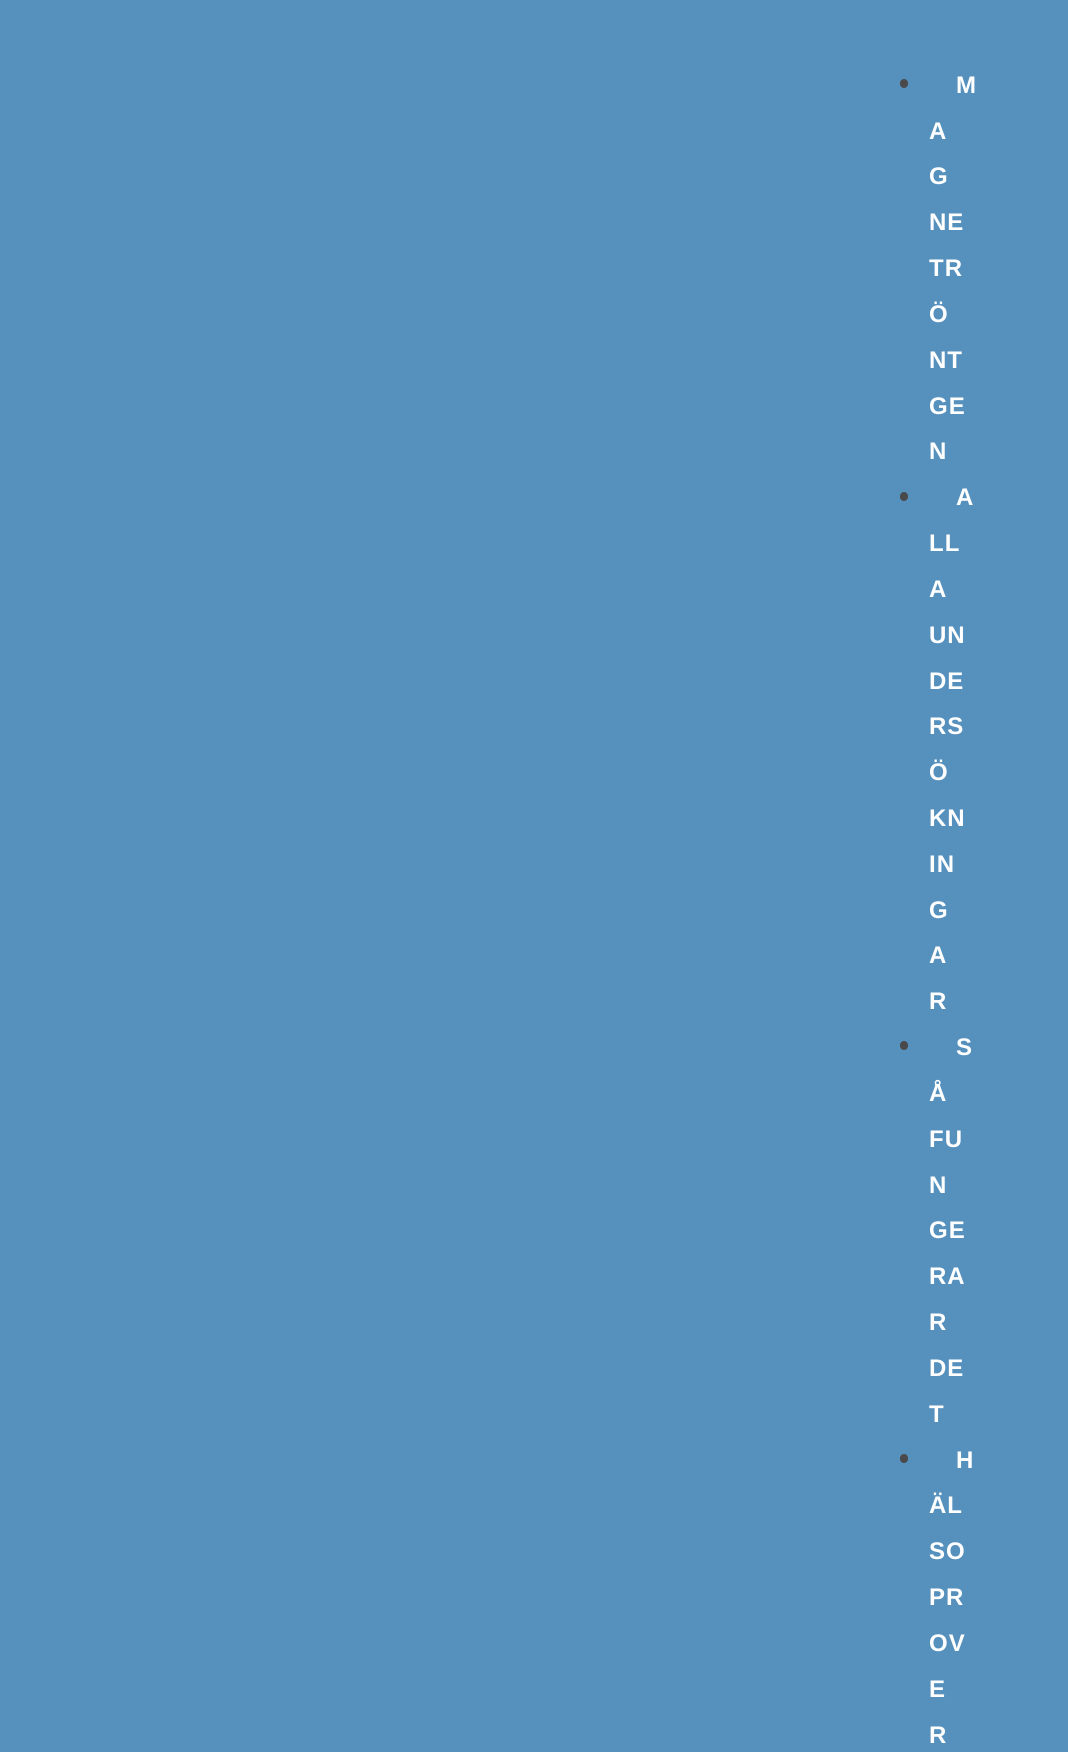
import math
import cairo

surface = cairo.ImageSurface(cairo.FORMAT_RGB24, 1068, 1752)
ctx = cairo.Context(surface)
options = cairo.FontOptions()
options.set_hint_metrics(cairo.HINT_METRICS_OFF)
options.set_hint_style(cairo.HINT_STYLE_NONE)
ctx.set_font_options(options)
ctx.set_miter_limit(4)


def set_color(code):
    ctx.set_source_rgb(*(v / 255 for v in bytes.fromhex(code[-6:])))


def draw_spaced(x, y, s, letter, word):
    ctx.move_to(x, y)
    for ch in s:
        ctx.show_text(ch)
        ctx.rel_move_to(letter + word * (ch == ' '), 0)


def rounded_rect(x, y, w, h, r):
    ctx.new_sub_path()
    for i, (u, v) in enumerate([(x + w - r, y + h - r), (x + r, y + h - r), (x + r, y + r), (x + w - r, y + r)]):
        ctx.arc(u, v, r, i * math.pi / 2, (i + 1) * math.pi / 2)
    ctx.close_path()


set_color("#5691be")
ctx.paint()
set_color("#4a4a4a")
rounded_rect(900, 79, 8, 9, 4)
ctx.fill()
ctx.select_font_face("Liberation Sans", cairo.FONT_SLANT_NORMAL, cairo.FONT_WEIGHT_BOLD)
ctx.set_font_size(24)
set_color("#ffffff")
draw_spaced(956, 93, "M", 1, 0)
draw_spaced(929, 139, "A", 1, 0)
draw_spaced(929, 184, "G", 1, 0)
draw_spaced(929, 230, "NE", 1, 0)
draw_spaced(929, 276, "TR", 1, 0)
draw_spaced(929, 322, "Ö", 1, 0)
draw_spaced(929, 368, "NT", 1, 0)
draw_spaced(929, 414, "GE", 1, 0)
draw_spaced(929, 459, "N", 1, 0)
set_color("#4a4a4a")
rounded_rect(900, 492, 8, 9, 4)
ctx.fill()
set_color("#ffffff")
draw_spaced(956, 505, "A", 1, 0)
draw_spaced(929, 551, "LL", 1, 0)
draw_spaced(929, 597, "A", 1, 0)
draw_spaced(929, 643, "UN", 1, 0)
draw_spaced(929, 689, "DE", 1, 0)
draw_spaced(929, 734, "RS", 1, 0)
draw_spaced(929, 780, "Ö", 1, 0)
draw_spaced(929, 826, "KN", 1, 0)
draw_spaced(929, 872, "IN", 1, 0)
draw_spaced(929, 918, "G", 1, 0)
draw_spaced(929, 963, "A", 1, 0)
draw_spaced(929, 1009, "R", 1, 0)
set_color("#4a4a4a")
rounded_rect(900, 1041, 8, 9, 4)
ctx.fill()
set_color("#ffffff")
draw_spaced(956, 1055, "S", 1, 0)
draw_spaced(929, 1101, "Å", 1, 0)
draw_spaced(929, 1147, "FU", 1, 0)
draw_spaced(929, 1193, "N", 1, 0)
draw_spaced(929, 1238, "GE", 1, 0)
draw_spaced(929, 1284, "RA", 1, 0)
draw_spaced(929, 1330, "R", 1, 0)
draw_spaced(929, 1376, "DE", 1, 0)
draw_spaced(929, 1422, "T", 1, 0)
set_color("#4a4a4a")
rounded_rect(900, 1454, 8, 9, 4)
ctx.fill()
set_color("#ffffff")
draw_spaced(956, 1468, "H", 1, 0)
draw_spaced(929, 1513, "ÄL", 1, 0)
draw_spaced(929, 1559, "SO", 1, 0)
draw_spaced(929, 1605, "PR", 1, 0)
draw_spaced(929, 1651, "OV", 1, 0)
draw_spaced(929, 1697, "E", 1, 0)
draw_spaced(929, 1743, "R", 1, 0)
surface.write_to_png("output.png")
